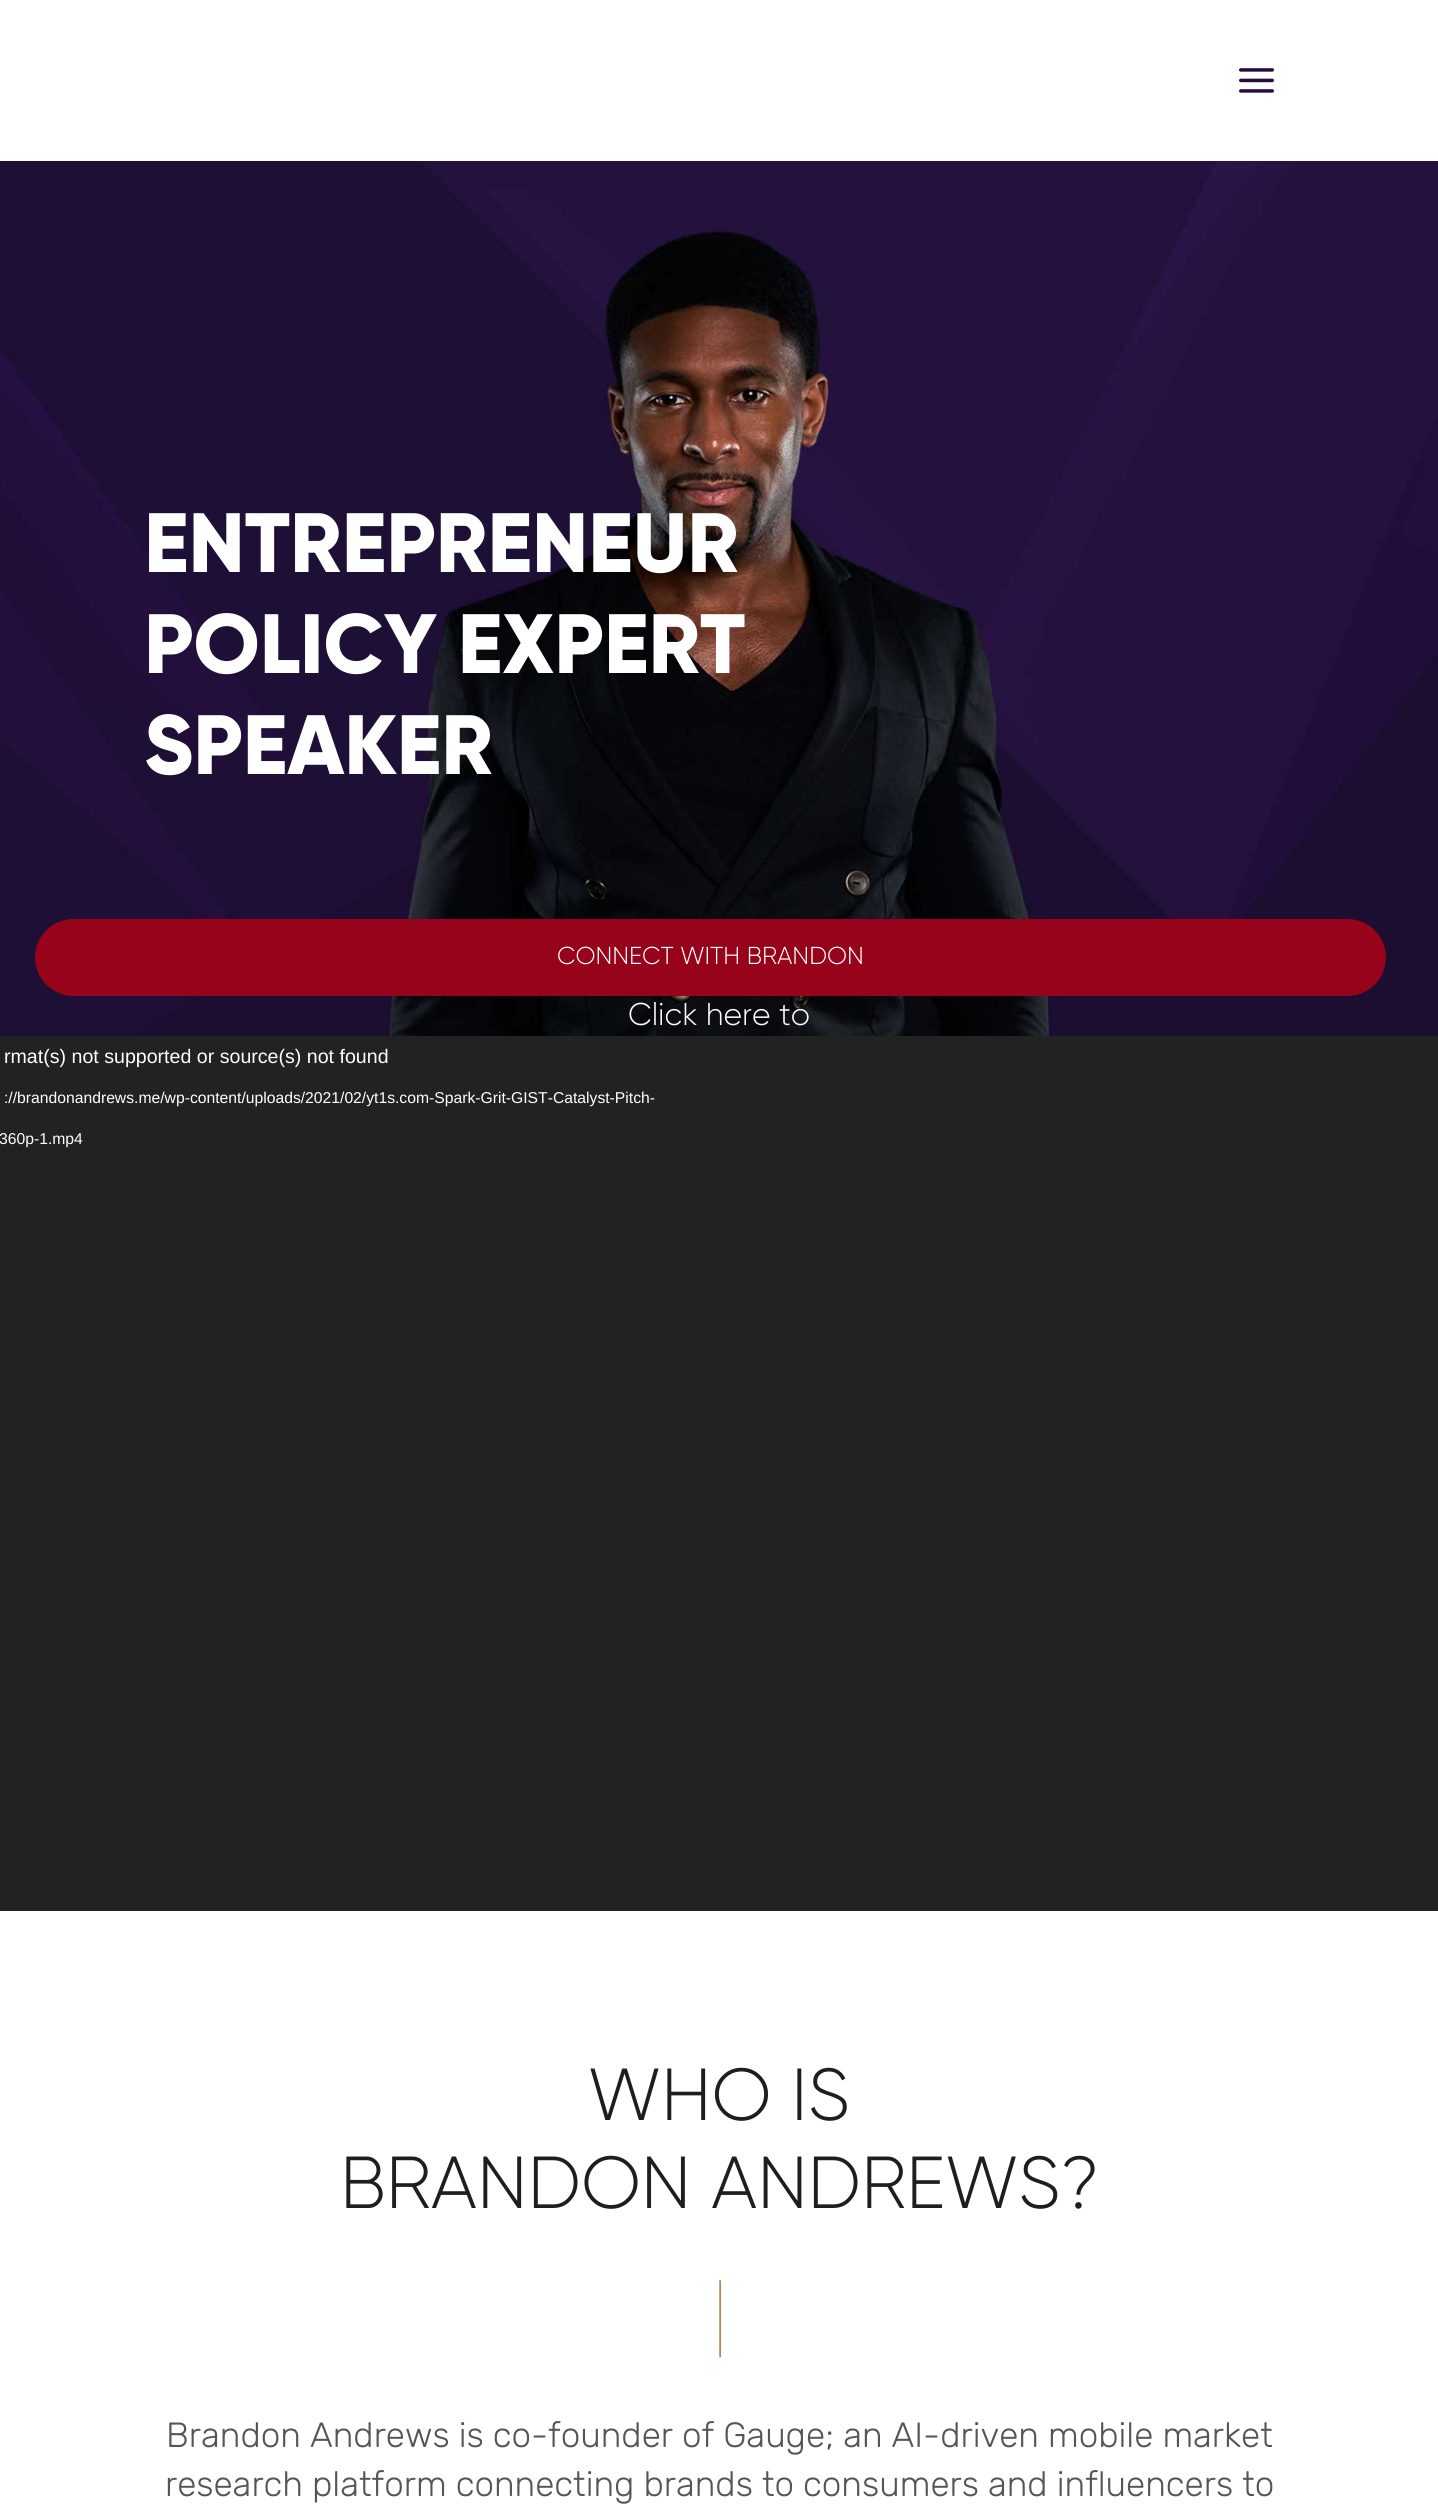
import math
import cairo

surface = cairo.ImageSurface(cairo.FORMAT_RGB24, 1438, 2514)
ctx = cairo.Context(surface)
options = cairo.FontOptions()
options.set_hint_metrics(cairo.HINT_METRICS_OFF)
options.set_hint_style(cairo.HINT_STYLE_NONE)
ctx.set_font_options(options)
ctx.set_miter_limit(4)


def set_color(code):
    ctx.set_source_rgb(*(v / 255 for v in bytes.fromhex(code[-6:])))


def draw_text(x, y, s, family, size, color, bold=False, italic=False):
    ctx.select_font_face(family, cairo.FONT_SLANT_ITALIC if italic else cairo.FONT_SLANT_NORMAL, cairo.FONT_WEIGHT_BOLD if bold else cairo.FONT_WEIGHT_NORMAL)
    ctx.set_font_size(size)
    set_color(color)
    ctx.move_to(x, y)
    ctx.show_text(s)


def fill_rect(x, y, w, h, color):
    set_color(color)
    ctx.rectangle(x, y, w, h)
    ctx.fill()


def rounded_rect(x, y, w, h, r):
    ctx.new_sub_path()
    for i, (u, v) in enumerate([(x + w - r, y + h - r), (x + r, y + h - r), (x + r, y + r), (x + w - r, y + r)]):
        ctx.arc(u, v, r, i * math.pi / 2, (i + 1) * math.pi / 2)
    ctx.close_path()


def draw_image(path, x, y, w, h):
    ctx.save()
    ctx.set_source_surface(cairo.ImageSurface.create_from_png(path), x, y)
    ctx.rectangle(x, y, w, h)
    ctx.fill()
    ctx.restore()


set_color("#ffffff")
ctx.paint()
draw_image("assets/img1.png", 1239, 68, 35, 25)
draw_image("assets/img2.png", 0, 161, 1438, 875)
draw_text(144, 572, "ENTREPRENEUR", "Gilroy ExtraBold", 84, "#ffffff")
draw_text(144, 673, "POLICY EXPERT", "Gilroy ExtraBold", 84, "#ffffff")
draw_text(144, 774, "SPEAKER", "Gilroy ExtraBold", 84, "#ffffff")
set_color("#96031a")
rounded_rect(35, 919, 1351, 77, 38.5)
ctx.fill()
draw_text(557, 964, "CONNECT WITH BRANDON", "Gilroy Light", 24.5, "#ffffff")
draw_text(628, 1025, "Click here to", "Gilroy Light", 31.5, "#ffffff")
fill_rect(0, 1036, 1438, 875, "#222222")
draw_text(4, 1063, "rmat(s) not supported or source(s) not found", "Liberation Sans", 19.6, "#ffffff")
draw_text(4, 1103, "://brandonandrews.me/wp-content/uploads/2021/02/yt1s.com-Spark-Grit-GIST-Catalyst-Pitch-", "Liberation Sans", 15.7, "#ffffff")
draw_text(-1, 1144, "360p-1.mp4", "Liberation Sans", 15.7, "#ffffff")
draw_text(588, 2120, "WHO IS", "Gilroy Light", 73.5, "#1e1e1e")
draw_text(340, 2208, "BRANDON ANDREWS?", "Gilroy Light", 73.5, "#1e1e1e")
draw_image("assets/img3.png", 719, 2280, 2, 78)
draw_text(166, 2447, "Brandon Andrews is co-founder of Gauge; an AI-driven mobile market", "Rubik Light", 35, "#555555")
draw_text(165, 2496, "research platform connecting brands to consumers and influencers to", "Rubik Light", 35, "#555555")
surface.write_to_png("output.png")
